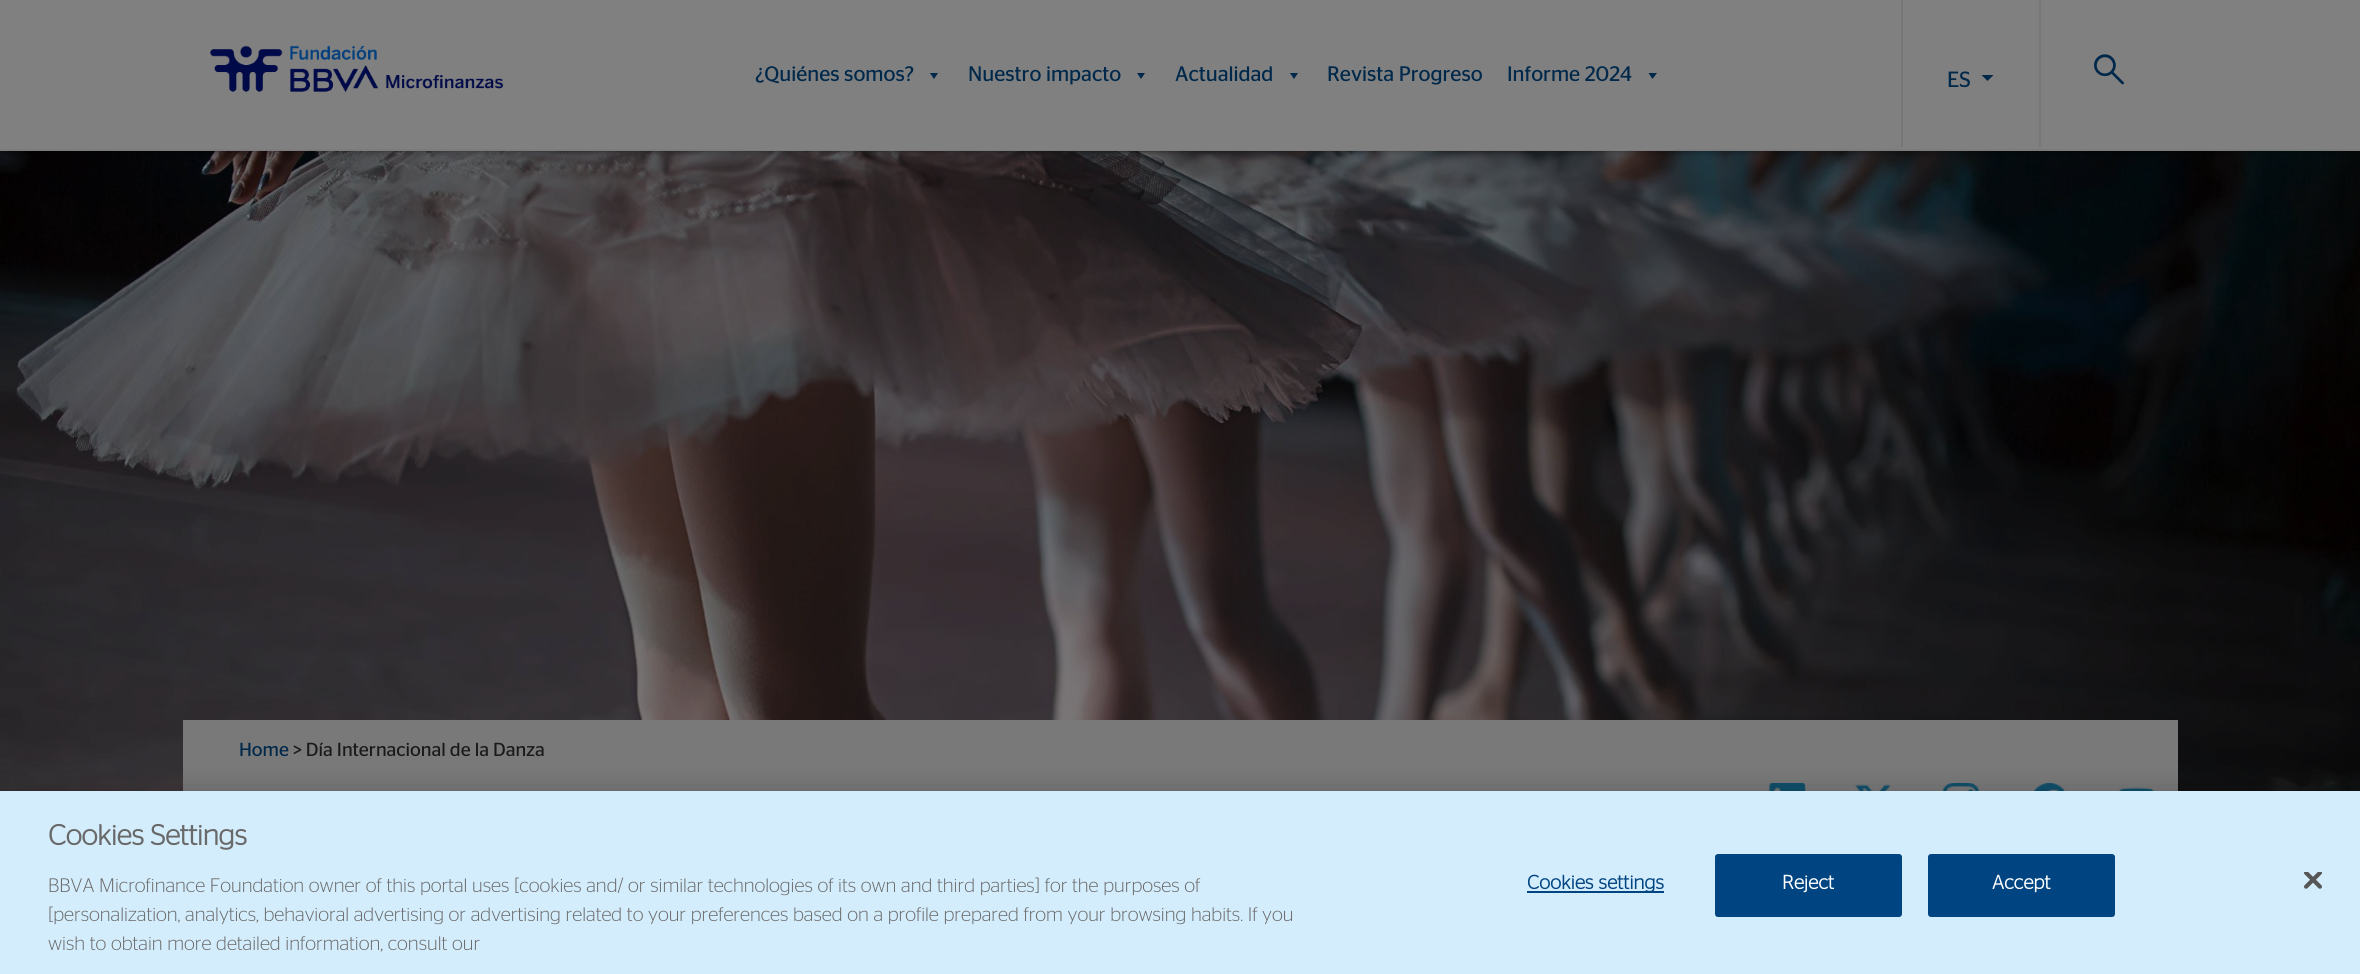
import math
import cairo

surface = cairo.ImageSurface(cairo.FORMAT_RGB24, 2360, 974)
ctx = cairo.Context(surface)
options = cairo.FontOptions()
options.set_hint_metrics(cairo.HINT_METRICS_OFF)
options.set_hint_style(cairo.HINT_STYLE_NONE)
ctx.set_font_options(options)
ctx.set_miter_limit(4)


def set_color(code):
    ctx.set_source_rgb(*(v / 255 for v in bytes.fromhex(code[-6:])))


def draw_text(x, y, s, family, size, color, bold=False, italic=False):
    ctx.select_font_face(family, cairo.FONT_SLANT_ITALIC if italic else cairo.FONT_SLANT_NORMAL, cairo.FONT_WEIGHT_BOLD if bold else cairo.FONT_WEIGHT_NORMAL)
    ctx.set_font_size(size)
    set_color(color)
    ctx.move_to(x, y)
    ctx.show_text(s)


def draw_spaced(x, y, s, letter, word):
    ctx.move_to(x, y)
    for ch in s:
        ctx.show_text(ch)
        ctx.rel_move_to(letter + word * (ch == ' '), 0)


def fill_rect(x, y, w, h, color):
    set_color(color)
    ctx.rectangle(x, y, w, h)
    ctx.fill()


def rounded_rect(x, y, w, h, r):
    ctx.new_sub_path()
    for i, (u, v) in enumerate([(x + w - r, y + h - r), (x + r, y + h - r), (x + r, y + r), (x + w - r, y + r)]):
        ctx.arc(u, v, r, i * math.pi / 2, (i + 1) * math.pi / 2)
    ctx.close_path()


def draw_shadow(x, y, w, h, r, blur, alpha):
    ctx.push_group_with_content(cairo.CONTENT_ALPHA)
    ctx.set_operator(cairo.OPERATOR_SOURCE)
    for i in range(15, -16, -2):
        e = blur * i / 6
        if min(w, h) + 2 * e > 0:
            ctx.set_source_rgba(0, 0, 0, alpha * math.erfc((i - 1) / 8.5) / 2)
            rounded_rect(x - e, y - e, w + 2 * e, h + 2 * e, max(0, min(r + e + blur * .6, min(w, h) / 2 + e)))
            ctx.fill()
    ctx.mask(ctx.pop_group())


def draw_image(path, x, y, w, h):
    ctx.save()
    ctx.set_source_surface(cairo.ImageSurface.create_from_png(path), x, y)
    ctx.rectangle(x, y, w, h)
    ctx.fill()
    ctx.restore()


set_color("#ffffff")
ctx.paint()
draw_image("assets/img3.png", 0, 151, 2360, 640)
set_color("#000000")
draw_shadow(0, 0, 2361, 150, 0, 4, 0.6)
fill_rect(0, 0, 2360, 149, "#808080")
fill_rect(0, 149, 2360, 2, "#7c7c7c")
draw_image("assets/img1.png", 210, 45, 294, 47)
fill_rect(743, 149, 931, 1, "#808080")
draw_text(755, 81, "¿Quiénes somos?", "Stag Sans", 21, "#00284a")
ctx.new_path()
ctx.move_to(938, 73)
ctx.line_to(934, 79)
ctx.line_to(930, 73)
ctx.close_path()
ctx.fill()
draw_text(968, 81, "Nuestro impacto", "Stag Sans", 21, "#00284a")
ctx.new_path()
ctx.move_to(1145, 73)
ctx.line_to(1141, 79)
ctx.line_to(1137, 73)
ctx.close_path()
ctx.fill()
draw_text(1175, 81, "Actualidad", "Stag Sans", 21, "#00284a")
ctx.new_path()
ctx.move_to(1298, 73)
ctx.line_to(1294, 79)
ctx.line_to(1290, 73)
ctx.close_path()
ctx.fill()
draw_text(1327, 81, "Revista Progreso", "Stag Sans", 21, "#00284a")
draw_text(1507, 81, "Informe 2024", "Stag Sans", 21, "#00284a")
ctx.new_path()
ctx.move_to(1657, 73)
ctx.line_to(1652.5, 79)
ctx.line_to(1648.5, 73)
ctx.close_path()
ctx.fill()
fill_rect(2039, 0, 2, 147, "#777777")
fill_rect(1901, 0, 2, 147, "#777777")
draw_text(1947, 87, "ES", "Stag Sans", 22, "#00284a")
ctx.new_path()
ctx.move_to(1981.5, 75)
ctx.line_to(1993.5, 75)
ctx.line_to(1987.5, 81)
ctx.close_path()
ctx.fill()
draw_image("assets/img2.png", 2094, 54, 30, 31)
fill_rect(183, 720, 1995, 71, "#797979")
draw_text(239, 756, "Home", "Stag Sans", 18.9, "#00284a")
draw_text(293, 756, "> Día Internacional de la Danza", "Stag Sans", 18.9, "#1a1a1a")
draw_image("assets/img4.png", 1768, 783, 38, 8)
draw_image("assets/img5.png", 1855, 784, 36, 7)
draw_image("assets/img6.png", 1942, 783, 37, 8)
draw_image("assets/img7.png", 2034, 783, 32, 8)
draw_image("assets/img8.png", 2119, 787, 35, 4)
set_color("#000000")
draw_shadow(0, 791, 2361, 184, 0, 13.5, 0.2)
fill_rect(0, 791, 2360, 183, "#d4edfc")
draw_text(48, 845, "Cookies Settings", "Stag Sans", 28.75, "#696969", bold=True)
draw_text(48, 892, "BBVA Microfinance Foundation owner of this portal uses [cookies and/ or similar technologies of its own and third parties] for the purposes of", "Stag Sans Light", 19.5, "#696969")
draw_text(48, 921, "[personalization, analytics, behavioral advertising or advertising related to your preferences based on a profile prepared from your browsing habits. If you", "Stag Sans Light", 19.5, "#696969")
draw_text(48, 950, "wish to obtain more detailed information, consult our", "Stag Sans Light", 19.5, "#696969")
fill_rect(1527, 891, 137, 2, "#004481")
ctx.select_font_face("Stag Sans", cairo.FONT_SLANT_NORMAL, cairo.FONT_WEIGHT_BOLD)
draw_spaced(1527, 889, "Cookies settings", 0.25, 0)
rounded_rect(1716, 855, 185, 61, 2)
ctx.fill_preserve()
ctx.stroke()
set_color("#ffffff")
draw_spaced(1782, 889, "Reject", 0.25, 0)
set_color("#004481")
rounded_rect(1929, 855, 185, 61, 2)
ctx.fill_preserve()
ctx.stroke()
set_color("#ffffff")
draw_spaced(1992, 889, "Accept", 0.25, 0)
draw_image("assets/img9.png", 2304, 872, 18, 17)
surface.write_to_png("output.png")
